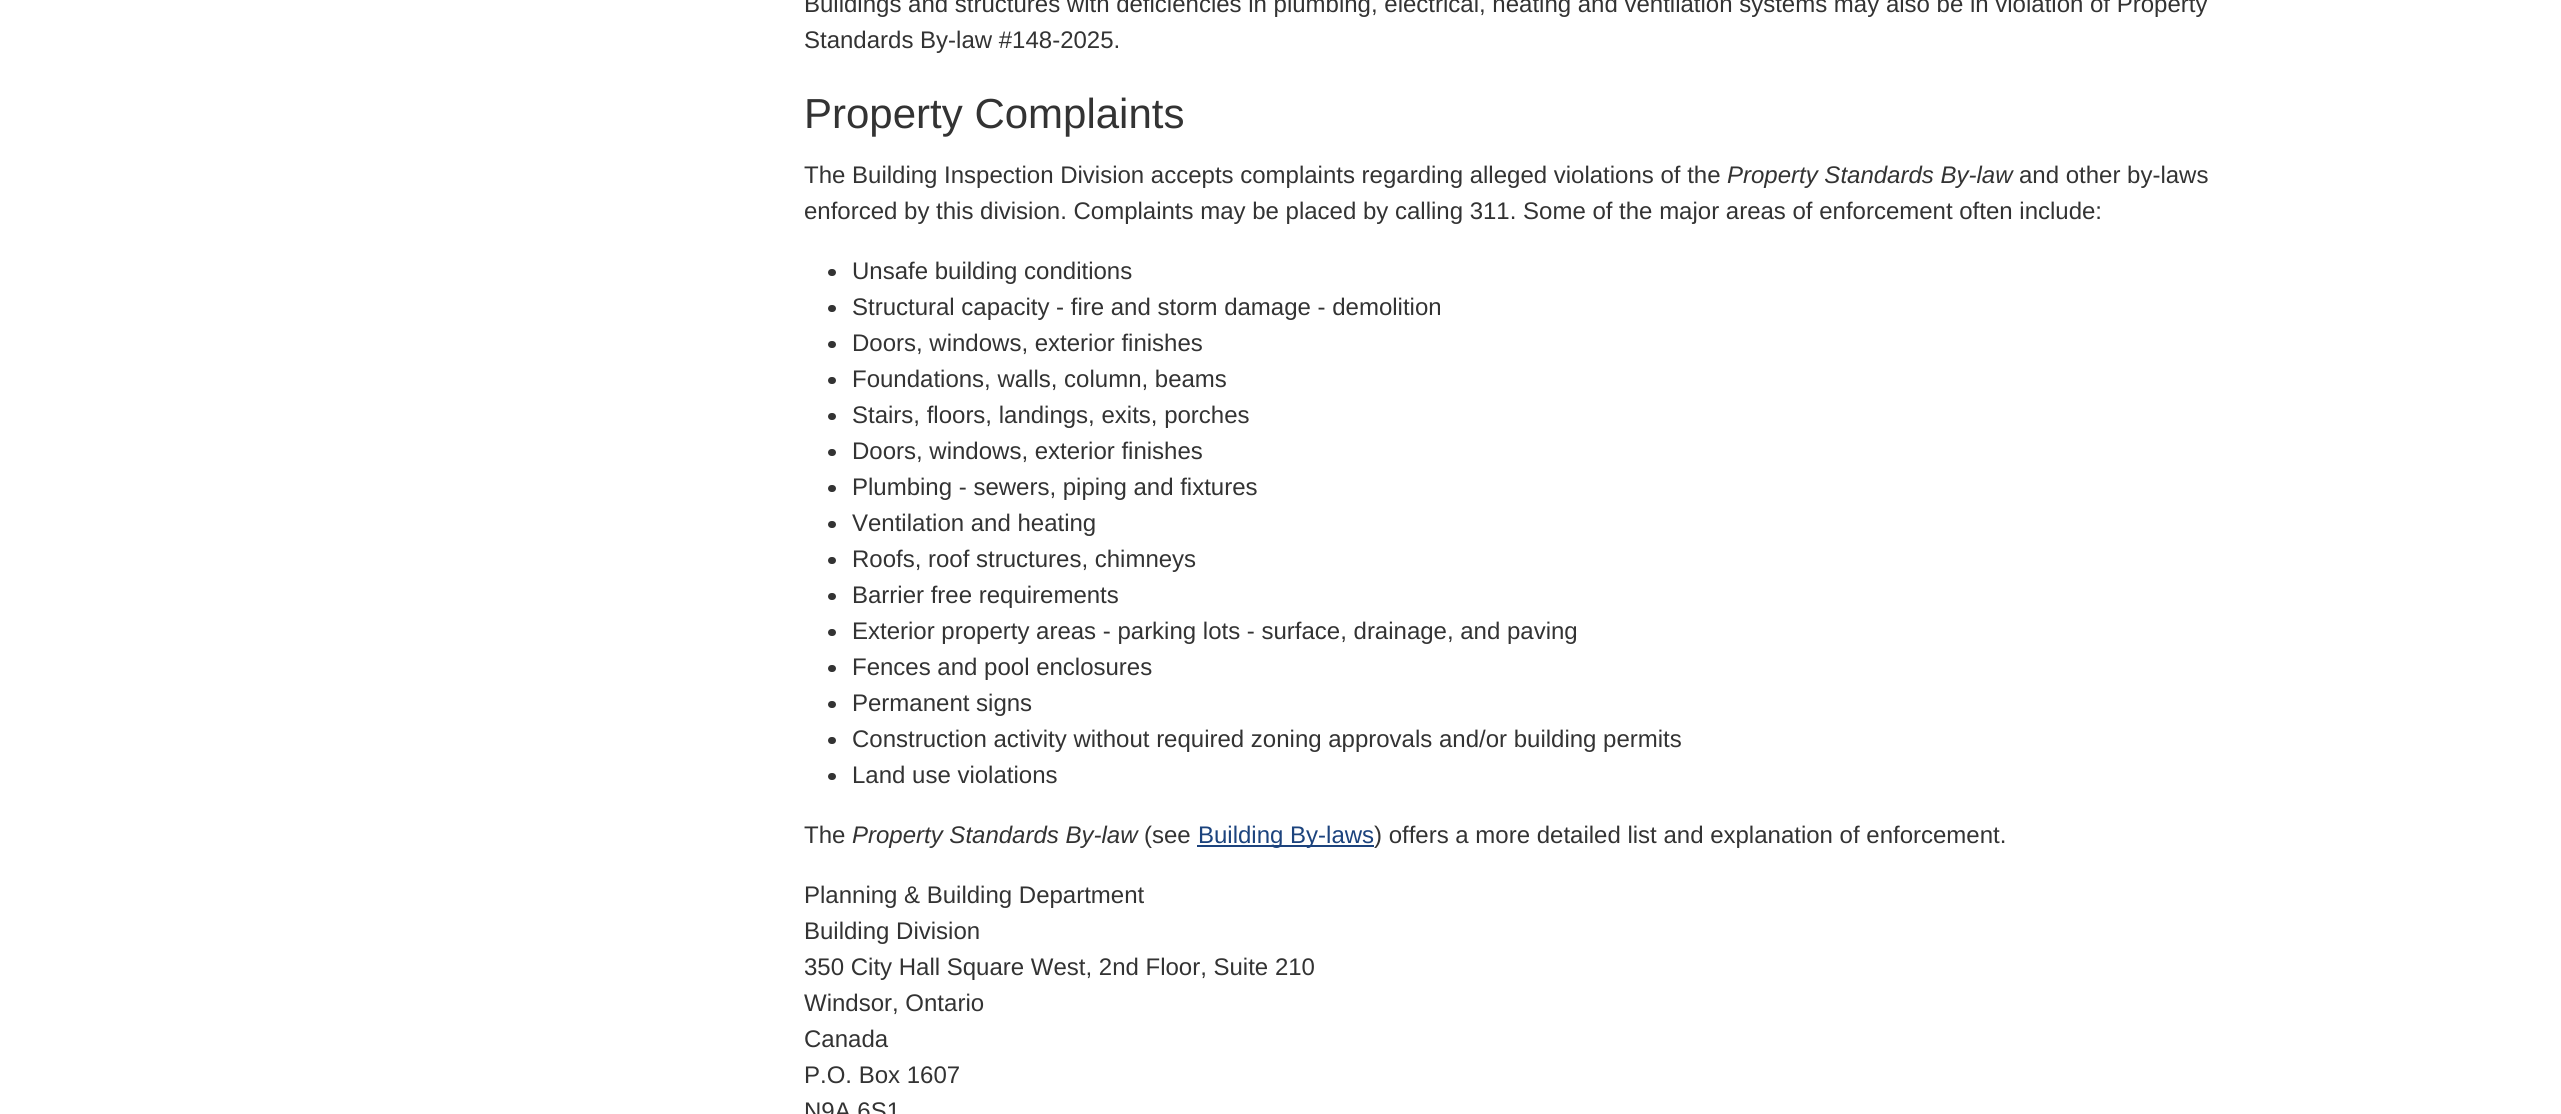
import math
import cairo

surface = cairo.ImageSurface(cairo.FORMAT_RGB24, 2561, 1114)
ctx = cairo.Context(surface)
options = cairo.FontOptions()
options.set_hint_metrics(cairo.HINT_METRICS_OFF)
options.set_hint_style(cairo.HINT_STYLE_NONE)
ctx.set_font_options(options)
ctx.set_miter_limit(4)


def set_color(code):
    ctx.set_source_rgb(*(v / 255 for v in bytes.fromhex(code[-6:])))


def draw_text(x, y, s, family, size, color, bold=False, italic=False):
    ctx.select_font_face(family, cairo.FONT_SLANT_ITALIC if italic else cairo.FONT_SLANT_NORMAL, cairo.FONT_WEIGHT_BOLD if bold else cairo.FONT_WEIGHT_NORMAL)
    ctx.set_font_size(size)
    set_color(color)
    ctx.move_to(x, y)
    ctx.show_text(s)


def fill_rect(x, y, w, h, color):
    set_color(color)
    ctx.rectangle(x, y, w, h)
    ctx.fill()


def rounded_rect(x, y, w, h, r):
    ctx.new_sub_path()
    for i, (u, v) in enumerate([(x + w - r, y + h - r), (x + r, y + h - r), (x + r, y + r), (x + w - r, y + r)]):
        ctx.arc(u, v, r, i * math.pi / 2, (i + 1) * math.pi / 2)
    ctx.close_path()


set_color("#ffffff")
ctx.paint()
draw_text(804, 12, "Buildings and structures with deficiencies in plumbing, electrical, heating and ventilation systems may also be in violation of Property", "Liberation Sans", 24, "#333333")
draw_text(804, 48, "Standards By-law #148-2025.", "Liberation Sans", 24, "#333333")
draw_text(804, 128, "Property Complaints", "Liberation Sans", 42, "#333333")
draw_text(804, 183, "The Building Inspection Division accepts complaints regarding alleged violations of the", "Liberation Sans", 24, "#333333")
draw_text(1727, 183, "Property Standards By-law", "Liberation Sans", 24, "#333333", italic=True)
draw_text(2019, 183, "and other by-laws", "Liberation Sans", 24, "#333333")
draw_text(804, 219, "enforced by this division. Complaints may be placed by calling 311. Some of the major areas of enforcement often include:", "Liberation Sans", 24, "#333333")
rounded_rect(828, 269, 8, 7, 3.5)
ctx.fill()
draw_text(852, 279, "Unsafe building conditions", "Liberation Sans", 24, "#333333")
rounded_rect(828, 305, 8, 7, 3.5)
ctx.fill()
draw_text(852, 315, "Structural capacity - fire and storm damage - demolition", "Liberation Sans", 24, "#333333")
rounded_rect(828, 341, 8, 7, 3.5)
ctx.fill()
draw_text(852, 351, "Doors, windows, exterior finishes", "Liberation Sans", 24, "#333333")
rounded_rect(828, 377, 8, 7, 3.5)
ctx.fill()
draw_text(852, 387, "Foundations, walls, column, beams", "Liberation Sans", 24, "#333333")
rounded_rect(828, 413, 8, 7, 3.5)
ctx.fill()
draw_text(852, 423, "Stairs, floors, landings, exits, porches", "Liberation Sans", 24, "#333333")
rounded_rect(828, 449, 8, 7, 3.5)
ctx.fill()
draw_text(852, 459, "Doors, windows, exterior finishes", "Liberation Sans", 24, "#333333")
rounded_rect(828, 485, 8, 7, 3.5)
ctx.fill()
draw_text(852, 495, "Plumbing - sewers, piping and fixtures", "Liberation Sans", 24, "#333333")
rounded_rect(828, 521, 8, 7, 3.5)
ctx.fill()
draw_text(852, 531, "Ventilation and heating", "Liberation Sans", 24, "#333333")
rounded_rect(828, 557, 8, 7, 3.5)
ctx.fill()
draw_text(852, 567, "Roofs, roof structures, chimneys", "Liberation Sans", 24, "#333333")
rounded_rect(828, 593, 8, 7, 3.5)
ctx.fill()
draw_text(852, 603, "Barrier free requirements", "Liberation Sans", 24, "#333333")
rounded_rect(828, 629, 8, 7, 3.5)
ctx.fill()
draw_text(852, 639, "Exterior property areas - parking lots - surface, drainage, and paving", "Liberation Sans", 24, "#333333")
rounded_rect(828, 665, 8, 7, 3.5)
ctx.fill()
draw_text(852, 675, "Fences and pool enclosures", "Liberation Sans", 24, "#333333")
rounded_rect(828, 701, 8, 7, 3.5)
ctx.fill()
draw_text(852, 711, "Permanent signs", "Liberation Sans", 24, "#333333")
rounded_rect(828, 737, 8, 7, 3.5)
ctx.fill()
draw_text(852, 747, "Construction activity without required zoning approvals and/or building permits", "Liberation Sans", 24, "#333333")
rounded_rect(828, 773, 8, 7, 3.5)
ctx.fill()
draw_text(852, 783, "Land use violations", "Liberation Sans", 24, "#333333")
draw_text(804, 843, "The", "Liberation Sans", 24, "#333333")
draw_text(852, 843, "Property Standards By-law", "Liberation Sans", 24, "#333333", italic=True)
draw_text(1144, 843, "(see", "Liberation Sans", 24, "#333333")
fill_rect(1197, 845, 177, 2, "#1c437d")
draw_text(1198, 843, "Building By-laws", "Liberation Sans", 24, "#1c437d")
draw_text(1374, 843, ") offers a more detailed list and explanation of enforcement.", "Liberation Sans", 24, "#333333")
draw_text(804, 903, "Planning & Building Department", "Liberation Sans", 24, "#333333")
draw_text(804, 939, "Building Division", "Liberation Sans", 24, "#333333")
draw_text(804, 975, "350 City Hall Square West, 2nd Floor, Suite 210", "Liberation Sans", 24, "#333333")
draw_text(804, 1011, "Windsor, Ontario", "Liberation Sans", 24, "#333333")
draw_text(804, 1047, "Canada", "Liberation Sans", 24, "#333333")
draw_text(804, 1083, "P.O. Box 1607", "Liberation Sans", 24, "#333333")
draw_text(804, 1119, "N9A 6S1", "Liberation Sans", 24, "#333333")
surface.write_to_png("output.png")
